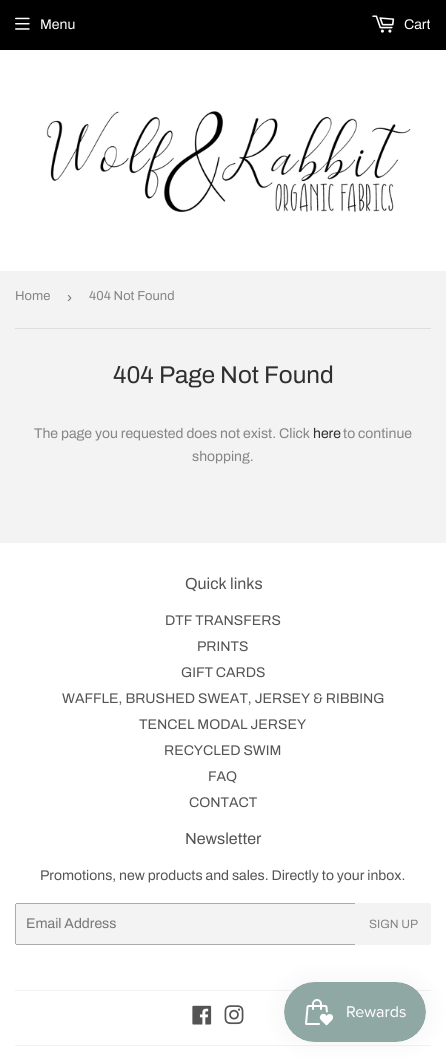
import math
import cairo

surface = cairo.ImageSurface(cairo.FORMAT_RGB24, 446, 1062)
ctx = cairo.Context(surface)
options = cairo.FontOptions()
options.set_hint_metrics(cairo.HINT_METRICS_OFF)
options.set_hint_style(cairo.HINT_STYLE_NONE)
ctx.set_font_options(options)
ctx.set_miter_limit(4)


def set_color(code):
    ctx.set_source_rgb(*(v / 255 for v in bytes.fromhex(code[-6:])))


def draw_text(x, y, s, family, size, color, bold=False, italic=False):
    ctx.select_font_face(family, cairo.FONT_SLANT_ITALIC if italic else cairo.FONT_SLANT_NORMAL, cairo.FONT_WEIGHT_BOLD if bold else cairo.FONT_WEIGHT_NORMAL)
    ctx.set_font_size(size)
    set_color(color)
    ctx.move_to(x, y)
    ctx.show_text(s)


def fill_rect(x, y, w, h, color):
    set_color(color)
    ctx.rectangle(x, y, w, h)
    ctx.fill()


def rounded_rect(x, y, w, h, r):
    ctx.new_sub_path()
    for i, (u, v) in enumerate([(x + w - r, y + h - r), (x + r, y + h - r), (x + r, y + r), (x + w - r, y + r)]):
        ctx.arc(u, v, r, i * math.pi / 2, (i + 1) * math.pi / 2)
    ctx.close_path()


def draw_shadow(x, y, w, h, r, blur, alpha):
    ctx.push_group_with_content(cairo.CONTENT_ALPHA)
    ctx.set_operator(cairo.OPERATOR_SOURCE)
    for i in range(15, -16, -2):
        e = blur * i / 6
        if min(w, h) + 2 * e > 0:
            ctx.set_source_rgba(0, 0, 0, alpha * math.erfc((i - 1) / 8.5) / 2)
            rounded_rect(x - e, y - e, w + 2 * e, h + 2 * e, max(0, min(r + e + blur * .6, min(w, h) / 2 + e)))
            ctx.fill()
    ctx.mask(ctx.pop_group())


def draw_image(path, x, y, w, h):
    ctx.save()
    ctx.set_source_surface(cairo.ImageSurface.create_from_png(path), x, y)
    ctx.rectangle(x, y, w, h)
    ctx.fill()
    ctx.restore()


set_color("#f3f3f3")
ctx.paint()
fill_rect(0, 0, 446, 50, "#000000")
draw_image("assets/img1.png", 15, 17, 15, 13)
draw_text(40, 29, "Menu", "Archivo", 14, "#ffffff")
draw_image("assets/img2.png", 372, 15, 23, 18)
draw_text(404, 29, "Cart", "Archivo", 14, "#ffffff")
fill_rect(0, 50, 446, 221, "#ffffff")
draw_image("assets/img3.png", 46, 111, 365, 101)
fill_rect(15, 328, 416, 1, "#dedede")
draw_text(15, 300, "Home", "Archivo", 13, "#858585")
draw_text(67, 302, "›", "Liberation Sans", 15, "#767676")
draw_text(89, 300, "404 Not Found", "Archivo", 13, "#858585")
draw_text(113, 383, "404 Page Not Found", "Archivo", 24.25, "#2f2f2f")
draw_text(34, 438, "The page you requested does not exist. Click", "Archivo", 14, "#858585")
draw_text(313, 438, "here", "Archivo", 14, "#2f2f2f")
draw_text(343, 438, "to continue", "Archivo", 14, "#858585")
draw_text(192, 461, "shopping.", "Archivo", 14, "#858585")
fill_rect(0, 543, 446, 519, "#ffffff")
draw_text(185, 589, "Quick links", "Archivo", 16, "#545454")
draw_text(165, 625, "DTF TRANSFERS", "Archivo", 14, "#545454")
draw_text(197, 651, "PRINTS", "Archivo", 14, "#545454")
draw_text(181, 677, "GIFT CARDS", "Archivo", 14, "#545454")
draw_text(62, 703, "WAFFLE, BRUSHED SWEAT, JERSEY & RIBBING", "Archivo", 14, "#545454")
draw_text(139, 729, "TENCEL MODAL JERSEY", "Archivo", 14, "#545454")
draw_text(164, 755, "RECYCLED SWIM", "Archivo", 14, "#545454")
draw_text(208, 781, "FAQ", "Archivo", 14, "#545454")
draw_text(189, 807, "CONTACT", "Archivo", 14, "#545454")
draw_text(185, 844, "Newsletter", "Archivo", 16, "#545454")
draw_text(40, 880, "Promotions, new products and sales. Directly to your inbox.", "Archivo", 14, "#545454")
set_color("#f3f3f3")
rounded_rect(15, 903, 341, 42, 2)
ctx.fill()
fill_rect(16, 903, 339, 1, "#ababab")
fill_rect(16, 944, 339, 1, "#ababab")
fill_rect(15, 904, 1, 40, "#ababab")
draw_text(26, 928, "Email Address", "Archivo", 14, "#767676")
set_color("#f3f3f3")
ctx.new_path()
ctx.move_to(356, 903)
ctx.line_to(429, 903)
ctx.curve_to(430, 903, 431, 904, 431, 905)
ctx.line_to(431, 943)
ctx.curve_to(431, 944, 430, 945, 429, 945)
ctx.line_to(356, 945)
ctx.close_path()
ctx.fill()
draw_text(369, 928, "SIGN UP", "Archivo", 12, "#858585")
fill_rect(15, 990, 416, 1, "#f2f2f2")
draw_image("assets/img4.png", 192, 1005, 20, 20)
draw_image("assets/img5.png", 224, 1005, 20, 20)
fill_rect(15, 1045, 416, 1, "#f2f2f2")
set_color("#000000")
draw_shadow(284, 982, 142, 60, 30, 12.5, 0.05)
draw_image("assets/img6.png", 284, 982, 142, 60)
surface.write_to_png("output.png")
